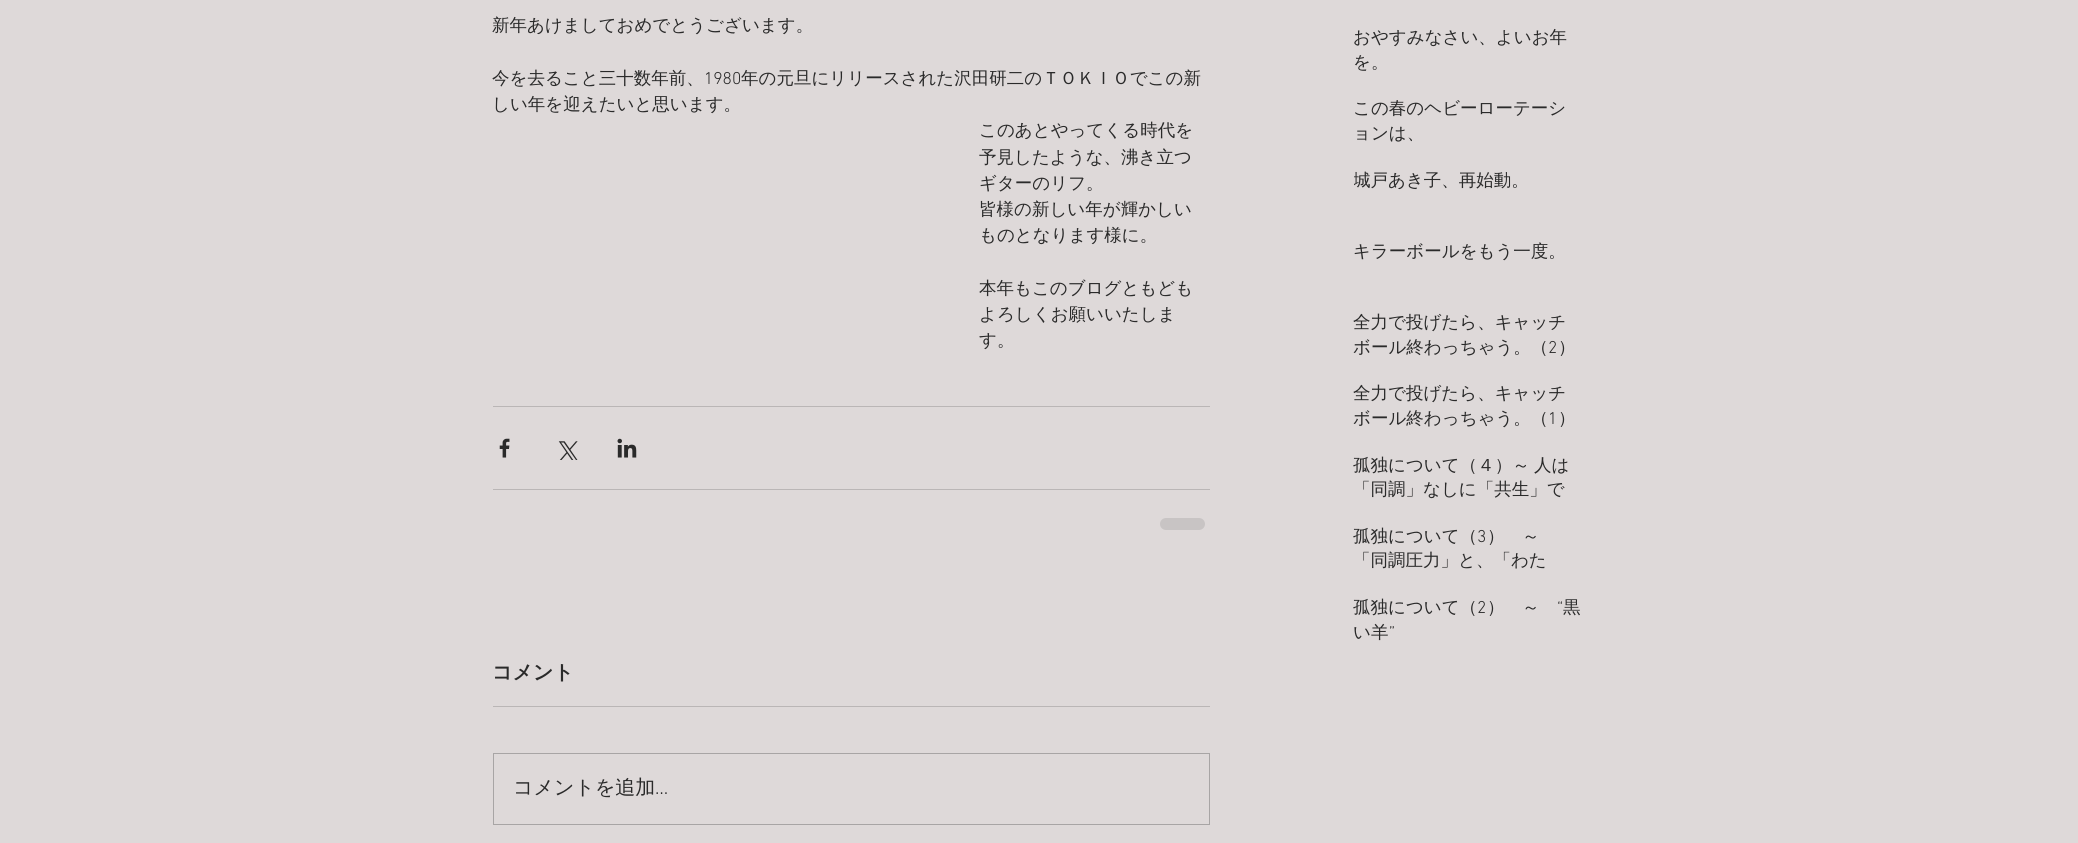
import math
import cairo

surface = cairo.ImageSurface(cairo.FORMAT_RGB24, 2078, 843)
ctx = cairo.Context(surface)
options = cairo.FontOptions()
options.set_hint_metrics(cairo.HINT_METRICS_OFF)
options.set_hint_style(cairo.HINT_STYLE_NONE)
ctx.set_font_options(options)
ctx.set_miter_limit(4)


def set_color(code):
    ctx.set_source_rgb(*(v / 255 for v in bytes.fromhex(code[-6:])))


def draw_text(x, y, s, family, size, color, bold=False, italic=False):
    ctx.select_font_face(family, cairo.FONT_SLANT_ITALIC if italic else cairo.FONT_SLANT_NORMAL, cairo.FONT_WEIGHT_BOLD if bold else cairo.FONT_WEIGHT_NORMAL)
    ctx.set_font_size(size)
    set_color(color)
    ctx.move_to(x, y)
    ctx.show_text(s)


def draw_spaced(x, y, s, letter, word):
    ctx.move_to(x, y)
    for ch in s:
        ctx.show_text(ch)
        ctx.rel_move_to(letter + word * (ch == ' '), 0)


def fill_rect(x, y, w, h, color):
    set_color(color)
    ctx.rectangle(x, y, w, h)
    ctx.fill()


def rounded_rect(x, y, w, h, r):
    ctx.new_sub_path()
    for i, (u, v) in enumerate([(x + w - r, y + h - r), (x + r, y + h - r), (x + r, y + r), (x + w - r, y + r)]):
        ctx.arc(u, v, r, i * math.pi / 2, (i + 1) * math.pi / 2)
    ctx.close_path()


def draw_image(path, x, y, w, h):
    ctx.save()
    ctx.set_source_surface(cairo.ImageSurface.create_from_png(path), x, y)
    ctx.rectangle(x, y, w, h)
    ctx.fill()
    ctx.restore()


set_color("#ded9d9")
ctx.paint()
draw_text(492, 31, "新年あけましておめでとうございます。", "WenQuanYi Zen Hei Medium", 17.5, "#2a2a2a")
draw_text(492, 84, "今を去ること三十数年前、", "WenQuanYi Zen Hei Medium", 17.5, "#2a2a2a")
draw_text(704, 84, "1980", "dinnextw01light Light", 17.5, "#2a2a2a")
draw_text(741, 84, "年の元旦にリリースされた沢田研二のＴＯＫＩＯでこの新", "WenQuanYi Zen Hei Medium", 17.5, "#2a2a2a")
draw_text(492, 110, "しい年を迎えたいと思います。", "WenQuanYi Zen Hei Medium", 17.5, "#2a2a2a")
draw_text(979, 136, "このあとやってくる時代を", "WenQuanYi Zen Hei Medium", 17.5, "#2a2a2a")
draw_text(979, 163, "予見したような、沸き立つ", "WenQuanYi Zen Hei Medium", 17.5, "#2a2a2a")
draw_text(979, 189, "ギターのリフ。", "WenQuanYi Zen Hei Medium", 17.5, "#2a2a2a")
draw_text(979, 215, "皆様の新しい年が輝かしい", "WenQuanYi Zen Hei Medium", 17.5, "#2a2a2a")
draw_text(979, 241, "ものとなります様に。", "WenQuanYi Zen Hei Medium", 17.5, "#2a2a2a")
draw_text(979, 294, "本年もこのブログともども", "WenQuanYi Zen Hei Medium", 17.5, "#2a2a2a")
draw_text(979, 320, "よろしくお願いいたしま", "WenQuanYi Zen Hei Medium", 17.5, "#2a2a2a")
draw_text(979, 346, "す。", "WenQuanYi Zen Hei Medium", 17.5, "#2a2a2a")
fill_rect(493, 406, 717, 1, "#bab6b6")
draw_image("assets/img1.png", 499, 438, 11, 20)
draw_image("assets/img2.png", 558, 441, 20, 19)
draw_image("assets/img3.png", 617, 438, 20, 20)
fill_rect(493, 489, 717, 1, "#bab6b6")
set_color("#c8c4c4")
rounded_rect(1160, 518, 45, 12, 6)
ctx.fill()
draw_text(492, 679, "コメント", "WenQuanYi Zen Hei", 20, "#2a2a2a", bold=True)
fill_rect(493, 706, 717, 1, "#bab6b6")
ctx.rectangle(493.5, 753.5, 716, 71)
set_color("#a8a5a5")
ctx.set_line_width(1)
ctx.stroke()
draw_text(513, 794, "コメントを追加", "WenQuanYi Zen Hei Medium", 20, "#2a2a2a")
draw_text(655, 794, "…", "dinnextw01light Light", 20, "#2a2a2a")
draw_text(1353, 43, "おやすみなさい、よいお年", "WenQuanYi Zen Hei Medium", 17.5, "#2a2a2a")
draw_text(1353, 68, "を。", "WenQuanYi Zen Hei Medium", 17.5, "#2a2a2a")
draw_text(1353, 114, "この春のヘビーローテーシ", "WenQuanYi Zen Hei Medium", 17.5, "#2a2a2a")
draw_text(1353, 139, "ョンは、", "WenQuanYi Zen Hei Medium", 17.5, "#2a2a2a")
ctx.save()
ctx.rectangle(1354, 170, 227, 24)
ctx.clip()
draw_text(1353, 186, "城戸あき子、再始動。", "WenQuanYi Zen Hei Medium", 17.5, "#2a2a2a")
ctx.restore()
draw_text(1353, 257, "キラーボールをもう一度。", "WenQuanYi Zen Hei Medium", 17.5, "#2a2a2a")
draw_text(1353, 328, "全力で投げたら、キャッチ", "WenQuanYi Zen Hei Medium", 17.5, "#2a2a2a")
draw_text(1353, 353, "ボール終わっちゃう。（", "WenQuanYi Zen Hei Medium", 17.5, "#2a2a2a")
draw_text(1548, 353, "2", "dinnextw01light Light", 17.5, "#2a2a2a")
draw_text(1558, 353, "）", "WenQuanYi Zen Hei Medium", 17.5, "#2a2a2a")
draw_text(1353, 399, "全力で投げたら、キャッチ", "WenQuanYi Zen Hei Medium", 17.5, "#2a2a2a")
draw_text(1353, 424, "ボール終わっちゃう。（", "WenQuanYi Zen Hei Medium", 17.5, "#2a2a2a")
draw_text(1548, 424, "1", "dinnextw01light Light", 17.5, "#2a2a2a")
draw_text(1558, 424, "）", "WenQuanYi Zen Hei Medium", 17.5, "#2a2a2a")
draw_spaced(1353, 471, "孤独について（４）～ 人は", 0, -1)
draw_text(1353, 495, "「同調」なしに「共生」で", "WenQuanYi Zen Hei Medium", 17.5, "#2a2a2a")
draw_text(1353, 542, "孤独について（", "WenQuanYi Zen Hei Medium", 17.5, "#2a2a2a")
draw_text(1477, 542, "3", "dinnextw01light Light", 17.5, "#2a2a2a")
draw_text(1487, 542, "）　～", "WenQuanYi Zen Hei Medium", 17.5, "#2a2a2a")
draw_text(1353, 566, "「同調圧力」と、「わた", "WenQuanYi Zen Hei Medium", 17.5, "#2a2a2a")
draw_text(1353, 613, "孤独について（", "WenQuanYi Zen Hei Medium", 17.5, "#2a2a2a")
draw_text(1477, 613, "2", "dinnextw01light Light", 17.5, "#2a2a2a")
draw_text(1487, 613, "）　～", "WenQuanYi Zen Hei Medium", 17.5, "#2a2a2a")
draw_text(1557, 613, "“", "dinnextw01light Light", 17.5, "#2a2a2a")
draw_text(1563, 613, "黒", "WenQuanYi Zen Hei Medium", 17.5, "#2a2a2a")
draw_text(1353, 638, "い羊", "WenQuanYi Zen Hei Medium", 17.5, "#2a2a2a")
draw_text(1389, 638, "”", "dinnextw01light Light", 17.5, "#2a2a2a")
surface.write_to_png("output.png")
